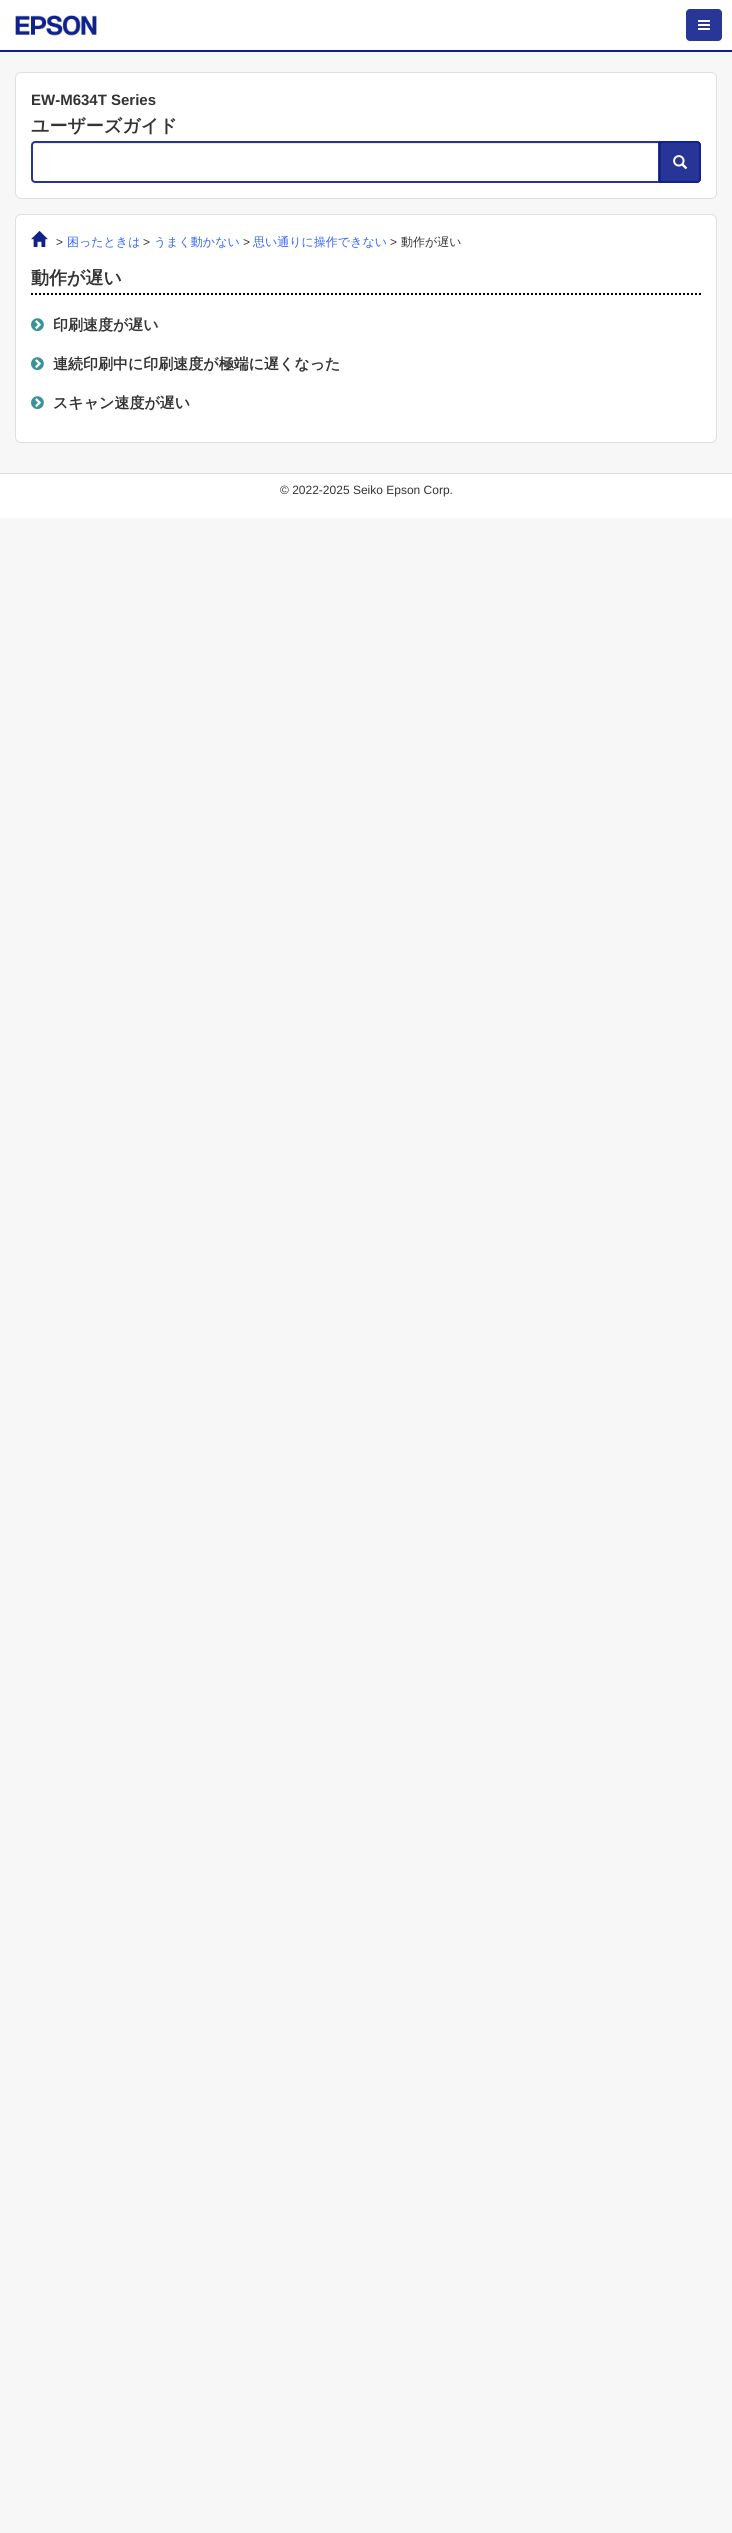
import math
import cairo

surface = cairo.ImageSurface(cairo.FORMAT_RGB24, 732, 2533)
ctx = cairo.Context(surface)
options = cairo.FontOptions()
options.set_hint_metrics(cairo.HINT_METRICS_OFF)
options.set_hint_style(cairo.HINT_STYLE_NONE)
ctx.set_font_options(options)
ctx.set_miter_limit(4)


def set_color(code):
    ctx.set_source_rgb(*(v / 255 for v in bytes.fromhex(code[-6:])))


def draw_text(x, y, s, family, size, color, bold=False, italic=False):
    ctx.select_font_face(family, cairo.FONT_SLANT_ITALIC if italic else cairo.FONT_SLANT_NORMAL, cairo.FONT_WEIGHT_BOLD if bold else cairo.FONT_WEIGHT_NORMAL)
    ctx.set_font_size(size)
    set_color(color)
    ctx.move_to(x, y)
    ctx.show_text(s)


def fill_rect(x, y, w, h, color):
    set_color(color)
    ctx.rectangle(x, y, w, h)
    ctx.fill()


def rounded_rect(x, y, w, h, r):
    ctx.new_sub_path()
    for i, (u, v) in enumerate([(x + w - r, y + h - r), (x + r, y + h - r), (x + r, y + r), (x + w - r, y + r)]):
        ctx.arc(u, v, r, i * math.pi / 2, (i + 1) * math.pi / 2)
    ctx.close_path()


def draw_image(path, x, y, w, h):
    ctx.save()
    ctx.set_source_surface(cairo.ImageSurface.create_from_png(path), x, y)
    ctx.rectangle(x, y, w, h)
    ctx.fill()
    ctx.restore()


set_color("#f7f7f7")
ctx.paint()
fill_rect(0, 0, 732, 50, "#ffffff")
fill_rect(0, 50, 732, 2, "#10218b")
draw_image("assets/img1.png", 15, 15, 82, 21)
set_color("#283797")
rounded_rect(686, 9, 36, 32, 4)
ctx.fill()
draw_image("assets/img2.png", 698, 20, 12, 10)
set_color("#ffffff")
rounded_rect(15.5, 72.5, 701, 126, 5.5)
ctx.fill_preserve()
set_color("#dfdfdf")
ctx.set_line_width(1)
ctx.stroke()
draw_text(31, 105, "EW-M634T Series", "Liberation Sans", 15, "#333333", bold=True)
draw_text(31, 132, "ユーザーズガイド", "WenQuanYi Zen Hei", 18, "#333333", bold=True)
set_color("#ececec")
ctx.new_path()
ctx.move_to(35, 143)
ctx.curve_to(33, 143, 33, 145, 33, 146)
ctx.line_to(34, 144)
ctx.line_to(658, 144)
ctx.line_to(658, 143)
ctx.close_path()
ctx.fill()
ctx.new_path()
ctx.move_to(35, 142)
ctx.line_to(659, 142)
ctx.line_to(659, 182)
ctx.line_to(35, 182)
ctx.curve_to(33.5, 182, 32, 180.5, 32, 179)
ctx.line_to(32, 145)
ctx.curve_to(32, 143.5, 33.5, 142, 35, 142)
ctx.close_path()
ctx.set_source_rgba(0.063, 0.129, 0.545, 0.9)
ctx.set_line_width(2)
ctx.stroke()
ctx.new_path()
ctx.move_to(659, 141)
ctx.line_to(697, 141)
ctx.curve_to(699, 141, 701, 143, 701, 145)
ctx.line_to(701, 179)
ctx.curve_to(701, 181, 699, 183, 697, 183)
ctx.line_to(659, 183)
ctx.close_path()
ctx.fill()
ctx.new_path()
ctx.move_to(660, 142)
ctx.line_to(697, 142)
ctx.curve_to(698.5, 142, 700, 143.5, 700, 145)
ctx.line_to(700, 179)
ctx.curve_to(700, 180.5, 698.5, 182, 697, 182)
ctx.line_to(660, 182)
ctx.close_path()
ctx.stroke()
draw_image("assets/img3.png", 673, 155, 15, 14)
set_color("#ffffff")
rounded_rect(15.5, 214.5, 701, 228, 5.5)
ctx.fill_preserve()
set_color("#dfdfdf")
ctx.set_line_width(1)
ctx.stroke()
draw_image("assets/img4.png", 31, 231, 17, 16)
draw_text(56, 246, ">", "Liberation Sans", 12, "#333333")
draw_text(67, 246, "困ったときは", "WenQuanYi Zen Hei Medium", 12, "#3366ff")
draw_text(143, 246, ">", "Liberation Sans", 12, "#333333")
draw_text(154, 246, "うまく動かない", "WenQuanYi Zen Hei Medium", 12, "#3366ff")
draw_text(243, 246, ">", "Liberation Sans", 12, "#333333")
draw_text(253, 246, "思い通りに操作できない", "WenQuanYi Zen Hei Medium", 12, "#3366ff")
draw_text(390, 246, ">", "Liberation Sans", 12, "#333333")
draw_text(401, 246, "動作が遅い", "WenQuanYi Zen Hei Medium", 12, "#333333")
ctx.new_path()
ctx.move_to(31, 294)
ctx.line_to(701, 294)
set_color("#000000")
ctx.set_line_width(2)
ctx.set_dash([2, 2])
ctx.stroke()
draw_text(31, 284, "動作が遅い", "WenQuanYi Zen Hei", 18, "#333333", bold=True)
draw_image("assets/img5.png", 31, 318, 13, 14)
draw_text(53, 330, "印刷速度が遅い", "WenQuanYi Zen Hei", 15, "#333333", bold=True)
draw_image("assets/img5.png", 31, 357, 13, 14)
draw_text(53, 369, "連続印刷中に印刷速度が極端に遅くなった", "WenQuanYi Zen Hei", 15, "#333333", bold=True)
draw_image("assets/img5.png", 31, 396, 13, 14)
draw_text(53, 408, "スキャン速度が遅い", "WenQuanYi Zen Hei", 15, "#333333", bold=True)
fill_rect(0, 474, 732, 44, "#ffffff")
fill_rect(0, 473, 732, 1, "#dddddd")
draw_text(280, 494, "© 2022-2025 Seiko Epson Corp.", "Liberation Sans", 12, "#333333")
surface.write_to_png("output.png")
